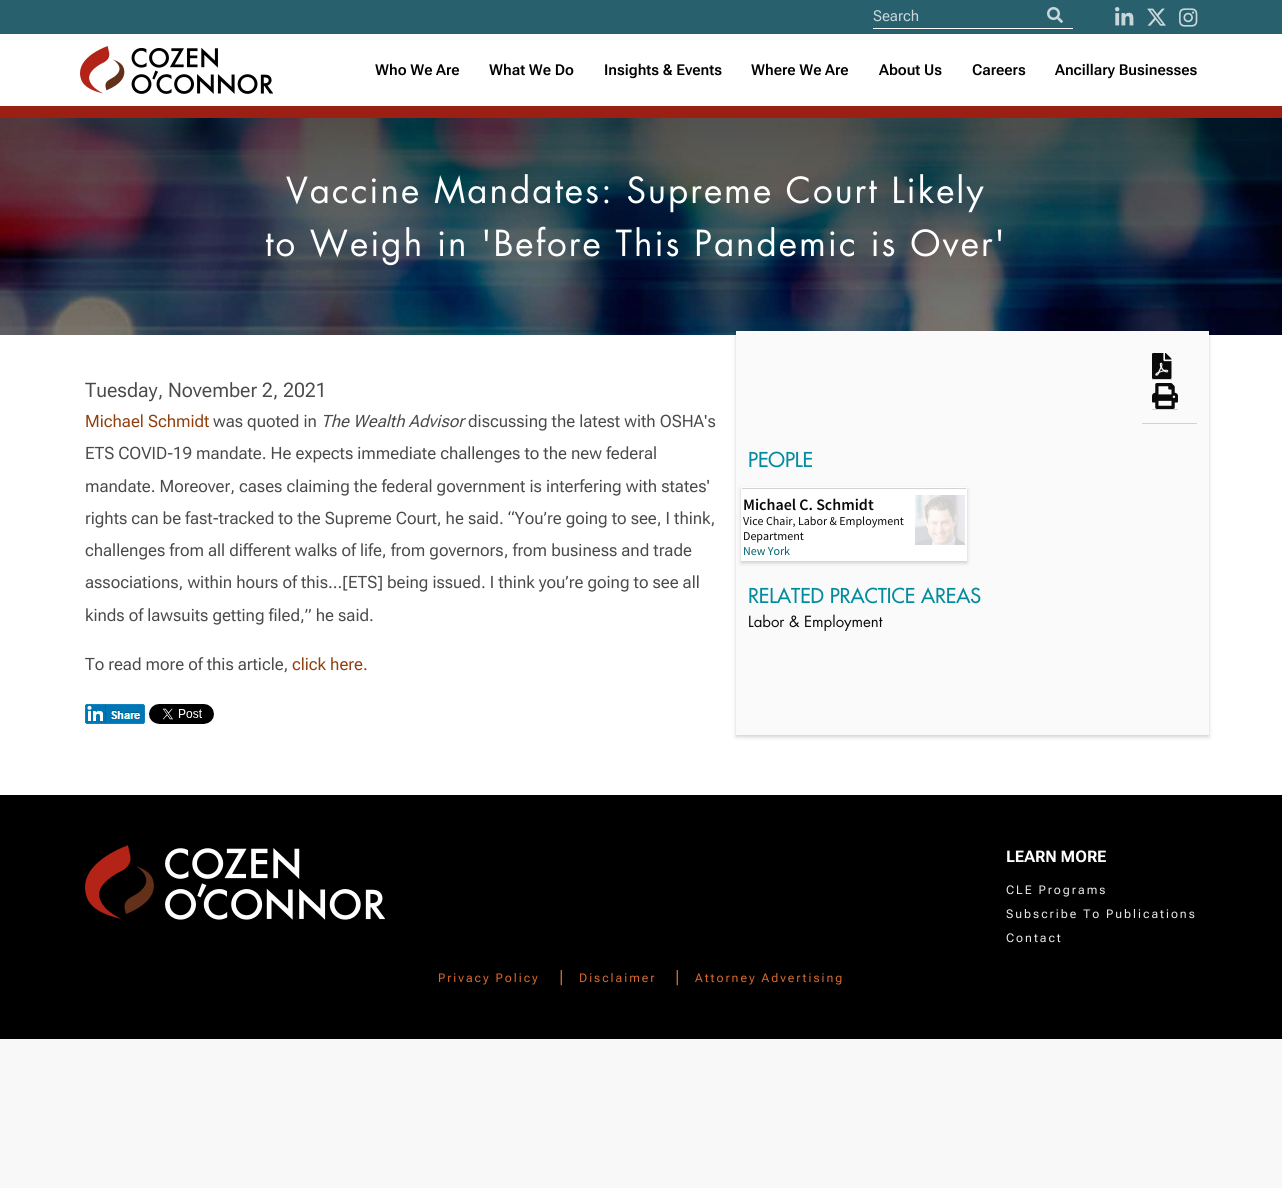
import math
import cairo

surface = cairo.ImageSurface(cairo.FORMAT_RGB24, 1282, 1188)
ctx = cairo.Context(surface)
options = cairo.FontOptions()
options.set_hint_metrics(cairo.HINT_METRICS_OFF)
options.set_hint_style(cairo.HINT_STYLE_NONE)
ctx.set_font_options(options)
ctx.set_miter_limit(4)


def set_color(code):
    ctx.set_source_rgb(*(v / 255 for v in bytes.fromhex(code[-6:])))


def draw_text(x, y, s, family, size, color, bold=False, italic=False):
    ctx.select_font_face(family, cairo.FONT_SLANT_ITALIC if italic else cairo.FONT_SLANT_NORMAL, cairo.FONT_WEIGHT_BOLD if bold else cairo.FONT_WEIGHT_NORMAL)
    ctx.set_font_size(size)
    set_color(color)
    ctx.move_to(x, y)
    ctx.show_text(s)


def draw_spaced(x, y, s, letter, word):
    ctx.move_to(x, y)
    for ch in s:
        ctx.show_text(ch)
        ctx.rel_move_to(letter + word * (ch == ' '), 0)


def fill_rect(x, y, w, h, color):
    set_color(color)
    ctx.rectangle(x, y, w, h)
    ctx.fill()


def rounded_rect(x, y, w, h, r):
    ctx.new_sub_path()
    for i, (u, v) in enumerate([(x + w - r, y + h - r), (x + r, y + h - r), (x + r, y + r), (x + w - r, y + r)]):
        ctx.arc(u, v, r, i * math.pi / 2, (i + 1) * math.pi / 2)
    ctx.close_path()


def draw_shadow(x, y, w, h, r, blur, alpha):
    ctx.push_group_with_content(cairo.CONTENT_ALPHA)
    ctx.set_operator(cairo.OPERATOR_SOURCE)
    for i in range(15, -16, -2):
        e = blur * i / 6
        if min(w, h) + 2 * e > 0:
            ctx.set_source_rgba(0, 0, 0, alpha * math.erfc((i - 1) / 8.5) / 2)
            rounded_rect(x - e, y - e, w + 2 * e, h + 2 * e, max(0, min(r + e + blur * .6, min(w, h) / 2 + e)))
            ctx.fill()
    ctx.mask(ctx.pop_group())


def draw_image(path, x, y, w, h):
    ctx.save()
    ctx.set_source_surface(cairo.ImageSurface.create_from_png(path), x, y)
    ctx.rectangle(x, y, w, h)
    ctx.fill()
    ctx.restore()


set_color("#f9f8f9")
ctx.paint()
fill_rect(0, 335, 1282, 460, "#ffffff")
fill_rect(0, 34, 1282, 72, "#ffffff")
fill_rect(0, 106, 1282, 12, "#9c1f14")
fill_rect(0, 0, 1282, 34, "#29606e")
fill_rect(873, 28, 200, 1, "#ffffff")
draw_text(873, 21, "Search", "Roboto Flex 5", 15, "#cad7db")
draw_image("assets/img1.png", 1047, 7, 16, 16)
draw_image("assets/img2.png", 1115, 7, 19, 19)
draw_image("assets/img3.png", 1147, 8, 19, 18)
draw_image("assets/img4.png", 1179, 8, 19, 19)
draw_image("assets/img5.png", 80, 46, 193, 48)
draw_text(375, 75, "Who We Are", "Roboto Flex SemiBold", 15, "#000000")
draw_text(489, 75, "What We Do", "Roboto Flex SemiBold", 15, "#000000")
draw_text(604, 75, "Insights & Events", "Roboto Flex SemiBold", 15, "#000000")
draw_text(751, 75, "Where We Are", "Roboto Flex SemiBold", 15, "#000000")
draw_text(879, 75, "About Us", "Roboto Flex SemiBold", 15, "#000000")
draw_text(972, 75, "Careers", "Roboto Flex SemiBold", 15, "#000000")
draw_text(1055, 75, "Ancillary Businesses", "Roboto Flex SemiBold", 15, "#000000")
draw_image("assets/img6.png", 0, 118, 1282, 217)
ctx.select_font_face("Futura")
ctx.set_font_size(35)
set_color("#ffffff")
draw_spaced(286, 203, "Vaccine Mandates: Supreme Court Likely", 2, 0)
draw_spaced(265, 256, "to Weigh in 'Before This Pandemic is Over'", 2, 0)
draw_text(85, 397, "Tuesday, November 2, 2021", "Roboto Flex", 20, "#4a4a4a")
draw_text(85, 427, "Michael Schmidt", "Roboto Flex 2", 17, "#913e0d")
draw_text(213, 427, "was quoted in", "Roboto Flex 2", 17, "#4a4a4a")
draw_text(321, 427, "The Wealth Advisor", "Roboto Flex", 17, "#4a4a4a", italic=True)
draw_text(468, 427, "discussing the latest with OSHA's", "Roboto Flex 2", 17, "#4a4a4a")
draw_text(85, 459, "ETS COVID-19 mandate. He expects immediate challenges to the new federal", "Roboto Flex 2", 17, "#4a4a4a")
draw_text(85, 492, "mandate. Moreover, cases claiming the federal government is interfering with states'", "Roboto Flex 2", 17, "#4a4a4a")
draw_text(85, 524, "rights can be fast-tracked to the Supreme Court, he said. “You’re going to see, I think,", "Roboto Flex 2", 17, "#4a4a4a")
draw_text(85, 556, "challenges from all different walks of life, from governors, from business and trade", "Roboto Flex 2", 17, "#4a4a4a")
draw_text(85, 588, "associations, within hours of this...[ETS] being issued. I think you’re going to see all", "Roboto Flex 2", 17, "#4a4a4a")
draw_text(85, 621, "kinds of lawsuits getting filed,” he said.", "Roboto Flex 2", 17, "#4a4a4a")
draw_text(85, 670, "To read more of this article,", "Roboto Flex 2", 17, "#4a4a4a")
draw_text(292, 670, "click here.", "Roboto Flex 2", 17, "#913e0d")
draw_image("assets/img7.png", 85, 704, 60, 20)
draw_image("assets/img8.png", 149, 704, 65, 20)
set_color("#000000")
draw_shadow(736, 333, 473, 404, 0, 2, 0.18)
fill_rect(736, 331, 473, 404, "#fafafa")
fill_rect(1152, 379, 20, 1, "#d3d3d3")
draw_image("assets/img9.png", 1152, 353, 20, 26)
fill_rect(1152, 409, 26, 1, "#d3d3d3")
draw_image("assets/img10.png", 1152, 383, 26, 26)
fill_rect(1142, 423, 55, 1, "#d3d3d3")
draw_text(748, 467, "PEOPLE", "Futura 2", 20, "#008c9e")
set_color("#000000")
draw_shadow(741, 489, 226, 74, 0, 2, 0.18)
fill_rect(741, 487, 226, 74, "#ffffff")
fill_rect(742, 488, 224, 1, "#d3d3d3")
draw_text(743, 510, "Michael C. Schmidt", "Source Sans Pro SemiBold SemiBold", 16, "#0a0a0a")
draw_image("assets/img11.png", 915, 495, 50, 50)
draw_text(743, 525, "Vice Chair, Labor & Employment", "Source Sans Pro", 12, "#0a0a0a")
draw_text(743, 540, "Department", "Source Sans Pro", 12, "#0a0a0a")
draw_text(743, 555, "New York", "Source Sans Pro", 12, "#006270")
draw_text(748, 603, "RELATED PRACTICE AREAS", "Futura 2", 20, "#008c9e")
draw_text(748, 627, "Labor & Employment", "Futura", 15, "#0a0a0a")
fill_rect(0, 795, 1282, 244, "#000000")
draw_image("assets/img12.png", 85, 845, 300, 75)
draw_text(1006, 862, "LEARN MORE", "Roboto Flex", 16, "#ffffff", bold=True)
ctx.select_font_face("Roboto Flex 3")
ctx.set_font_size(12)
set_color("#e8e8e8")
draw_spaced(1006, 894, "CLE Programs", 2, 0)
draw_spaced(1006, 918, "Subscribe To Publications", 2, 0)
draw_spaced(1006, 942, "Contact", 2, 0)
set_color("#d9682c")
draw_spaced(438, 982, "Privacy Policy", 2, 0)
draw_text(559, 982, "|", "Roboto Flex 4", 16, "#d9682c")
ctx.select_font_face("Roboto Flex 3")
ctx.set_font_size(12)
draw_spaced(579, 982, "Disclaimer", 2, 0)
draw_text(675, 982, "|", "Roboto Flex 4", 16, "#d9682c")
ctx.select_font_face("Roboto Flex 3")
ctx.set_font_size(12)
draw_spaced(695, 982, "Attorney Advertising", 2, 0)
surface.write_to_png("output.png")
